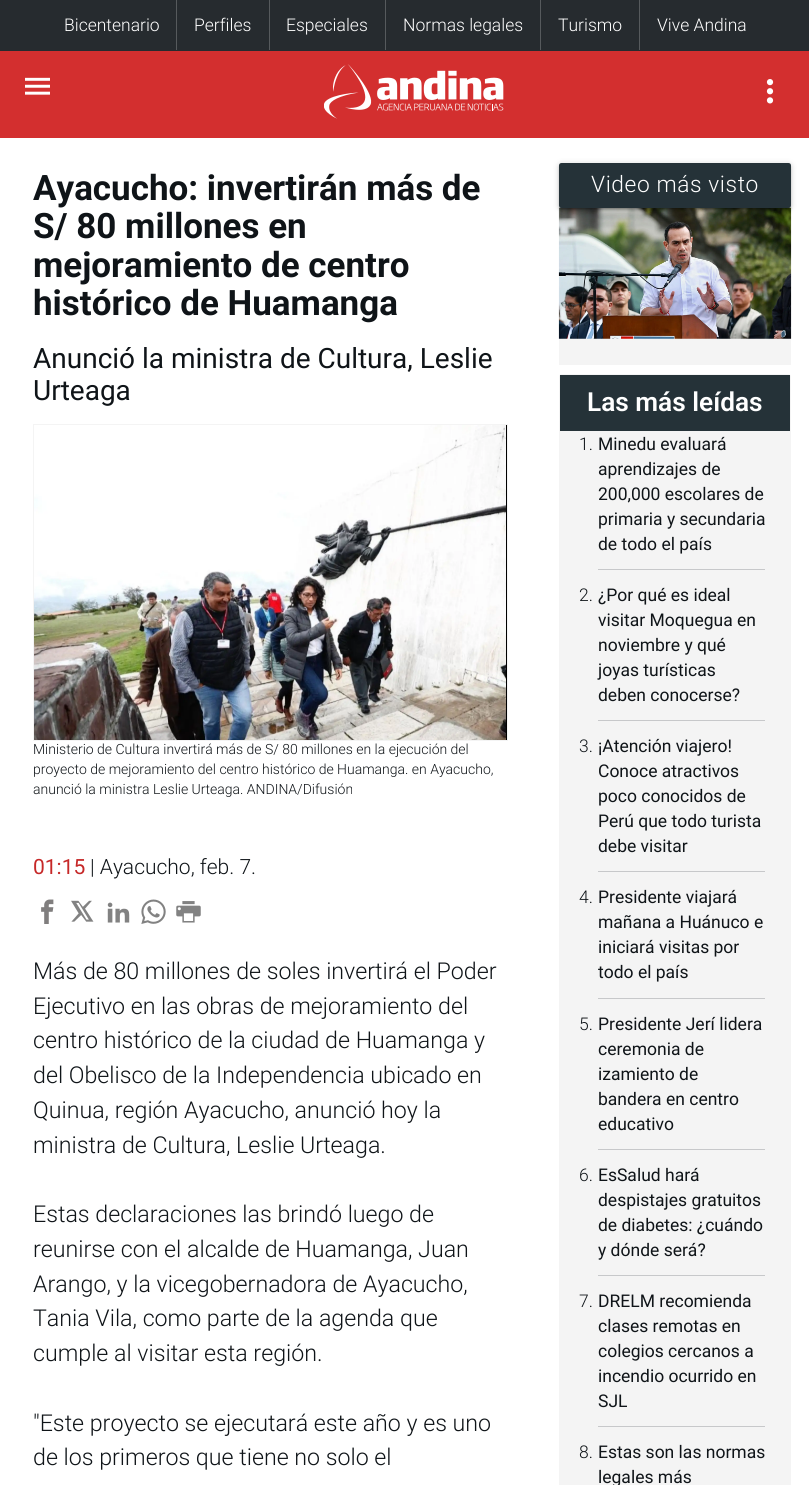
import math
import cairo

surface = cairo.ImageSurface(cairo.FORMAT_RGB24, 809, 1485)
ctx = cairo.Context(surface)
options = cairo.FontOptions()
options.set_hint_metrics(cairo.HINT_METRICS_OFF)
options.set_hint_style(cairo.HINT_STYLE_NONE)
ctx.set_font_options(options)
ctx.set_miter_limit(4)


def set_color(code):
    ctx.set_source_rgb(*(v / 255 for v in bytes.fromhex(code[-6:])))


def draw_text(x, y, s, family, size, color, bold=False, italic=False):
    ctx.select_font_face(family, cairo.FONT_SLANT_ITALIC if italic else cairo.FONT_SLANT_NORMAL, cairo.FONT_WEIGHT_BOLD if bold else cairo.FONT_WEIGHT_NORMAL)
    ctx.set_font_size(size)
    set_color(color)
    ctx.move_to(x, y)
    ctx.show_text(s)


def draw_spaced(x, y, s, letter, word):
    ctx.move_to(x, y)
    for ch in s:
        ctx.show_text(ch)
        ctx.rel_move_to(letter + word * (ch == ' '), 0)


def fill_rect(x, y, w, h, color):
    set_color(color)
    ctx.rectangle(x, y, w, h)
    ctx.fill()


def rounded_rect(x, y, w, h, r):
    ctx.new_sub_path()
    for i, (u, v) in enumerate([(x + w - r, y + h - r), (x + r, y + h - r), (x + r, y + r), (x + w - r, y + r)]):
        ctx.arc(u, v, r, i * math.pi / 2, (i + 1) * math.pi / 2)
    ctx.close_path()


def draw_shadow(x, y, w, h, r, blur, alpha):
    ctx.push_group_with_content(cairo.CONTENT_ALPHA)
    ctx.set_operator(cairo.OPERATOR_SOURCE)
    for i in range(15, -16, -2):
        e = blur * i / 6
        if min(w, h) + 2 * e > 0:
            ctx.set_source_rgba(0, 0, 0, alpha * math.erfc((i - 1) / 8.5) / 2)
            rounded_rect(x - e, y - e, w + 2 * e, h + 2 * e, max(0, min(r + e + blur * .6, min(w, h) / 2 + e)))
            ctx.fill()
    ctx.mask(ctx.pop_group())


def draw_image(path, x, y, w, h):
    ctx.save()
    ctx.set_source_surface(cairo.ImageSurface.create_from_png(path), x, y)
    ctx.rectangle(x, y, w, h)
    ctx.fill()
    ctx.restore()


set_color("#ffffff")
ctx.paint()
fill_rect(0, 51, 809, 87, "#d32f2f")
fill_rect(0, 0, 809, 51, "#262b2f")
draw_text(64, 31, "Bicentenario", "Roboto Light", 17.5, "#ffffff")
fill_rect(176, 0, 1, 50, "#565a5d")
draw_text(194, 31, "Perfiles", "Roboto Light", 17.5, "#ffffff")
fill_rect(269, 0, 1, 50, "#565a5d")
draw_text(286, 31, "Especiales", "Roboto Light", 17.5, "#ffffff")
fill_rect(385, 0, 1, 50, "#565a5d")
draw_text(403, 31, "Normas legales", "Roboto Light", 17.5, "#ffffff")
fill_rect(540, 0, 1, 50, "#565a5d")
draw_text(558, 31, "Turismo", "Roboto Light", 17.5, "#ffffff")
fill_rect(639, 0, 1, 50, "#565a5d")
draw_text(657, 31, "Vive Andina", "Roboto Light", 17.5, "#ffffff")
draw_image("assets/img1.png", 25, 77, 25, 18)
draw_image("assets/img2.png", 324, 64, 180, 55)
draw_image("assets/img3.png", 766, 79, 8, 25)
draw_text(33, 200, "Ayacucho: invertirán más de", "Roboto", 35, "#0f1418", bold=True)
draw_text(33, 238, "S/ 80 millones en", "Roboto", 35, "#0f1418", bold=True)
draw_text(33, 277, "mejoramiento de centro", "Roboto", 35, "#0f1418", bold=True)
draw_text(33, 315, "histórico de Huamanga", "Roboto", 35, "#0f1418", bold=True)
draw_text(33, 368, "Anunció la ministra de Cultura, Leslie", "Roboto", 28, "#0f1418")
draw_text(33, 400, "Urteaga", "Roboto", 28, "#0f1418")
fill_rect(506, 425, 1, 315, "#000000")
ctx.rectangle(33.5, 424.5, 474, 316)
set_color("#f4f4f4")
ctx.set_line_width(1)
ctx.stroke()
draw_image("assets/img4.png", 34, 425, 472, 315)
draw_text(33, 754, "Ministerio de Cultura invertirá más de S/ 80 millones en la ejecución del", "Roboto Light", 14, "#0f1418")
draw_text(33, 774, "proyecto de mejoramiento del centro histórico de Huamanga. en Ayacucho,", "Roboto Light", 14, "#0f1418")
draw_text(33, 794, "anunció la ministra Leslie Urteaga. ANDINA/Difusión", "Roboto Light", 14, "#0f1418")
draw_text(33, 874, "01:15", "Roboto", 21, "#c62828")
draw_text(90, 874, "| Ayacucho, feb. 7.", "Roboto Light", 21, "#0f1418")
draw_image("assets/img5.png", 41, 899, 13, 25)
draw_image("assets/img6.png", 71, 900, 23, 22)
draw_image("assets/img7.png", 107, 902, 23, 21)
draw_image("assets/img8.png", 141, 899, 25, 25)
draw_image("assets/img9.png", 176, 901, 25, 22)
draw_text(33, 979, "Más de 80 millones de soles invertirá el Poder", "Roboto Light", 23.2, "#0f1418")
draw_text(33, 1014, "Ejecutivo en las obras de mejoramiento del", "Roboto Light", 23.2, "#0f1418")
draw_text(33, 1048, "centro histórico de la ciudad de Huamanga y", "Roboto Light", 23.2, "#0f1418")
draw_text(33, 1083, "del Obelisco de la Independencia ubicado en", "Roboto Light", 23.2, "#0f1418")
draw_text(33, 1118, "Quinua, región Ayacucho, anunció hoy la", "Roboto Light", 23.2, "#0f1418")
draw_text(33, 1153, "ministra de Cultura, Leslie Urteaga.", "Roboto Light", 23.2, "#0f1418")
draw_text(33, 1222, "Estas declaraciones las brindó luego de", "Roboto Light", 23.2, "#0f1418")
draw_text(33, 1257, "reunirse con el alcalde de Huamanga, Juan", "Roboto Light", 23.2, "#0f1418")
draw_text(33, 1292, "Arango, y la vicegobernadora de Ayacucho,", "Roboto Light", 23.2, "#0f1418")
draw_text(33, 1326, "Tania Vila, como parte de la agenda que", "Roboto Light", 23.2, "#0f1418")
draw_text(33, 1361, "cumple al visitar esta región.", "Roboto Light", 23.2, "#0f1418")
draw_text(33, 1431, "\"Este proyecto se ejecutará este año y es uno", "Roboto Light", 23.2, "#0f1418")
draw_text(33, 1465, "de los primeros que tiene no solo el", "Roboto Light", 23.2, "#0f1418")
fill_rect(559, 163, 232, 202, "#f4f4f4")
draw_image("assets/img10.png", 558, 207, 234, 132)
set_color("#000000")
draw_shadow(559, 164, 232, 45, 2.5, 3, 0.2)
draw_shadow(561, 169, 228, 40, 0, 0.5, 0.12)
draw_shadow(559, 165, 232, 45, 2.5, 1, 0.14)
set_color("#253238")
rounded_rect(559, 163, 232, 45, 2.5)
ctx.fill()
ctx.set_font_size(22.75)
set_color("#ffffff")
draw_spaced(591, 192, "Video más visto", 0.6, 0)
set_color("#f4f4f4")
rounded_rect(559, 374, 232, 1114, 2.5)
ctx.fill()
fill_rect(560, 375, 230, 56, "#253238")
draw_text(587, 411, "Las más leídas", "Roboto SemiBold", 26.25, "#ffffff")
draw_text(579, 450, "1.", "Roboto Light", 17.5, "#0f1418")
draw_text(598, 450, "Minedu evaluará", "Roboto", 17.5, "#0f1418")
draw_text(598, 475, "aprendizajes de", "Roboto", 17.5, "#0f1418")
draw_text(598, 500, "200,000 escolares de", "Roboto", 17.5, "#0f1418")
draw_text(598, 525, "primaria y secundaria", "Roboto", 17.5, "#0f1418")
draw_text(598, 550, "de todo el país", "Roboto", 17.5, "#0f1418")
fill_rect(598, 569, 167, 1, "#c7c8ca")
draw_text(579, 601, "2.", "Roboto Light", 17.5, "#0f1418")
draw_text(598, 601, "¿Por qué es ideal", "Roboto", 17.5, "#0f1418")
draw_text(598, 626, "visitar Moquegua en", "Roboto", 17.5, "#0f1418")
draw_text(598, 651, "noviembre y qué", "Roboto", 17.5, "#0f1418")
draw_text(598, 676, "joyas turísticas", "Roboto", 17.5, "#0f1418")
draw_text(598, 701, "deben conocerse?", "Roboto", 17.5, "#0f1418")
fill_rect(598, 720, 167, 1, "#c7c8ca")
draw_text(579, 752, "3.", "Roboto Light", 17.5, "#0f1418")
draw_text(598, 752, "¡Atención viajero!", "Roboto", 17.5, "#0f1418")
draw_text(598, 777, "Conoce atractivos", "Roboto", 17.5, "#0f1418")
draw_text(598, 802, "poco conocidos de", "Roboto", 17.5, "#0f1418")
draw_text(598, 827, "Perú que todo turista", "Roboto", 17.5, "#0f1418")
draw_text(598, 852, "debe visitar", "Roboto", 17.5, "#0f1418")
fill_rect(598, 871, 167, 1, "#c7c8ca")
draw_text(579, 903, "4.", "Roboto Light", 17.5, "#0f1418")
draw_text(598, 903, "Presidente viajará", "Roboto", 17.5, "#0f1418")
draw_text(598, 928, "mañana a Huánuco e", "Roboto", 17.5, "#0f1418")
draw_text(598, 953, "iniciará visitas por", "Roboto", 17.5, "#0f1418")
draw_text(598, 978, "todo el país", "Roboto", 17.5, "#0f1418")
fill_rect(598, 998, 167, 1, "#c7c8ca")
draw_text(579, 1030, "5.", "Roboto Light", 17.5, "#0f1418")
draw_text(598, 1030, "Presidente Jerí lidera", "Roboto", 17.5, "#0f1418")
draw_text(598, 1055, "ceremonia de", "Roboto", 17.5, "#0f1418")
draw_text(598, 1080, "izamiento de", "Roboto", 17.5, "#0f1418")
draw_text(598, 1105, "bandera en centro", "Roboto", 17.5, "#0f1418")
draw_text(598, 1130, "educativo", "Roboto", 17.5, "#0f1418")
fill_rect(598, 1149, 167, 1, "#c7c8ca")
draw_text(579, 1181, "6.", "Roboto Light", 17.5, "#0f1418")
draw_text(598, 1181, "EsSalud hará", "Roboto", 17.5, "#0f1418")
draw_text(598, 1206, "despistajes gratuitos", "Roboto", 17.5, "#0f1418")
draw_text(598, 1231, "de diabetes: ¿cuándo", "Roboto", 17.5, "#0f1418")
draw_text(598, 1256, "y dónde será?", "Roboto", 17.5, "#0f1418")
fill_rect(598, 1275, 167, 1, "#c7c8ca")
draw_text(579, 1307, "7.", "Roboto Light", 17.5, "#0f1418")
draw_text(598, 1307, "DRELM recomienda", "Roboto", 17.5, "#0f1418")
draw_text(598, 1332, "clases remotas en", "Roboto", 17.5, "#0f1418")
draw_text(598, 1357, "colegios cercanos a", "Roboto", 17.5, "#0f1418")
draw_text(598, 1382, "incendio ocurrido en", "Roboto", 17.5, "#0f1418")
draw_text(598, 1407, "SJL", "Roboto", 17.5, "#0f1418")
fill_rect(598, 1426, 167, 1, "#c7c8ca")
draw_text(579, 1458, "8.", "Roboto Light", 17.5, "#0f1418")
draw_text(598, 1458, "Estas son las normas", "Roboto", 17.5, "#0f1418")
draw_text(598, 1483, "legales más", "Roboto", 17.5, "#0f1418")
surface.write_to_png("output.png")
